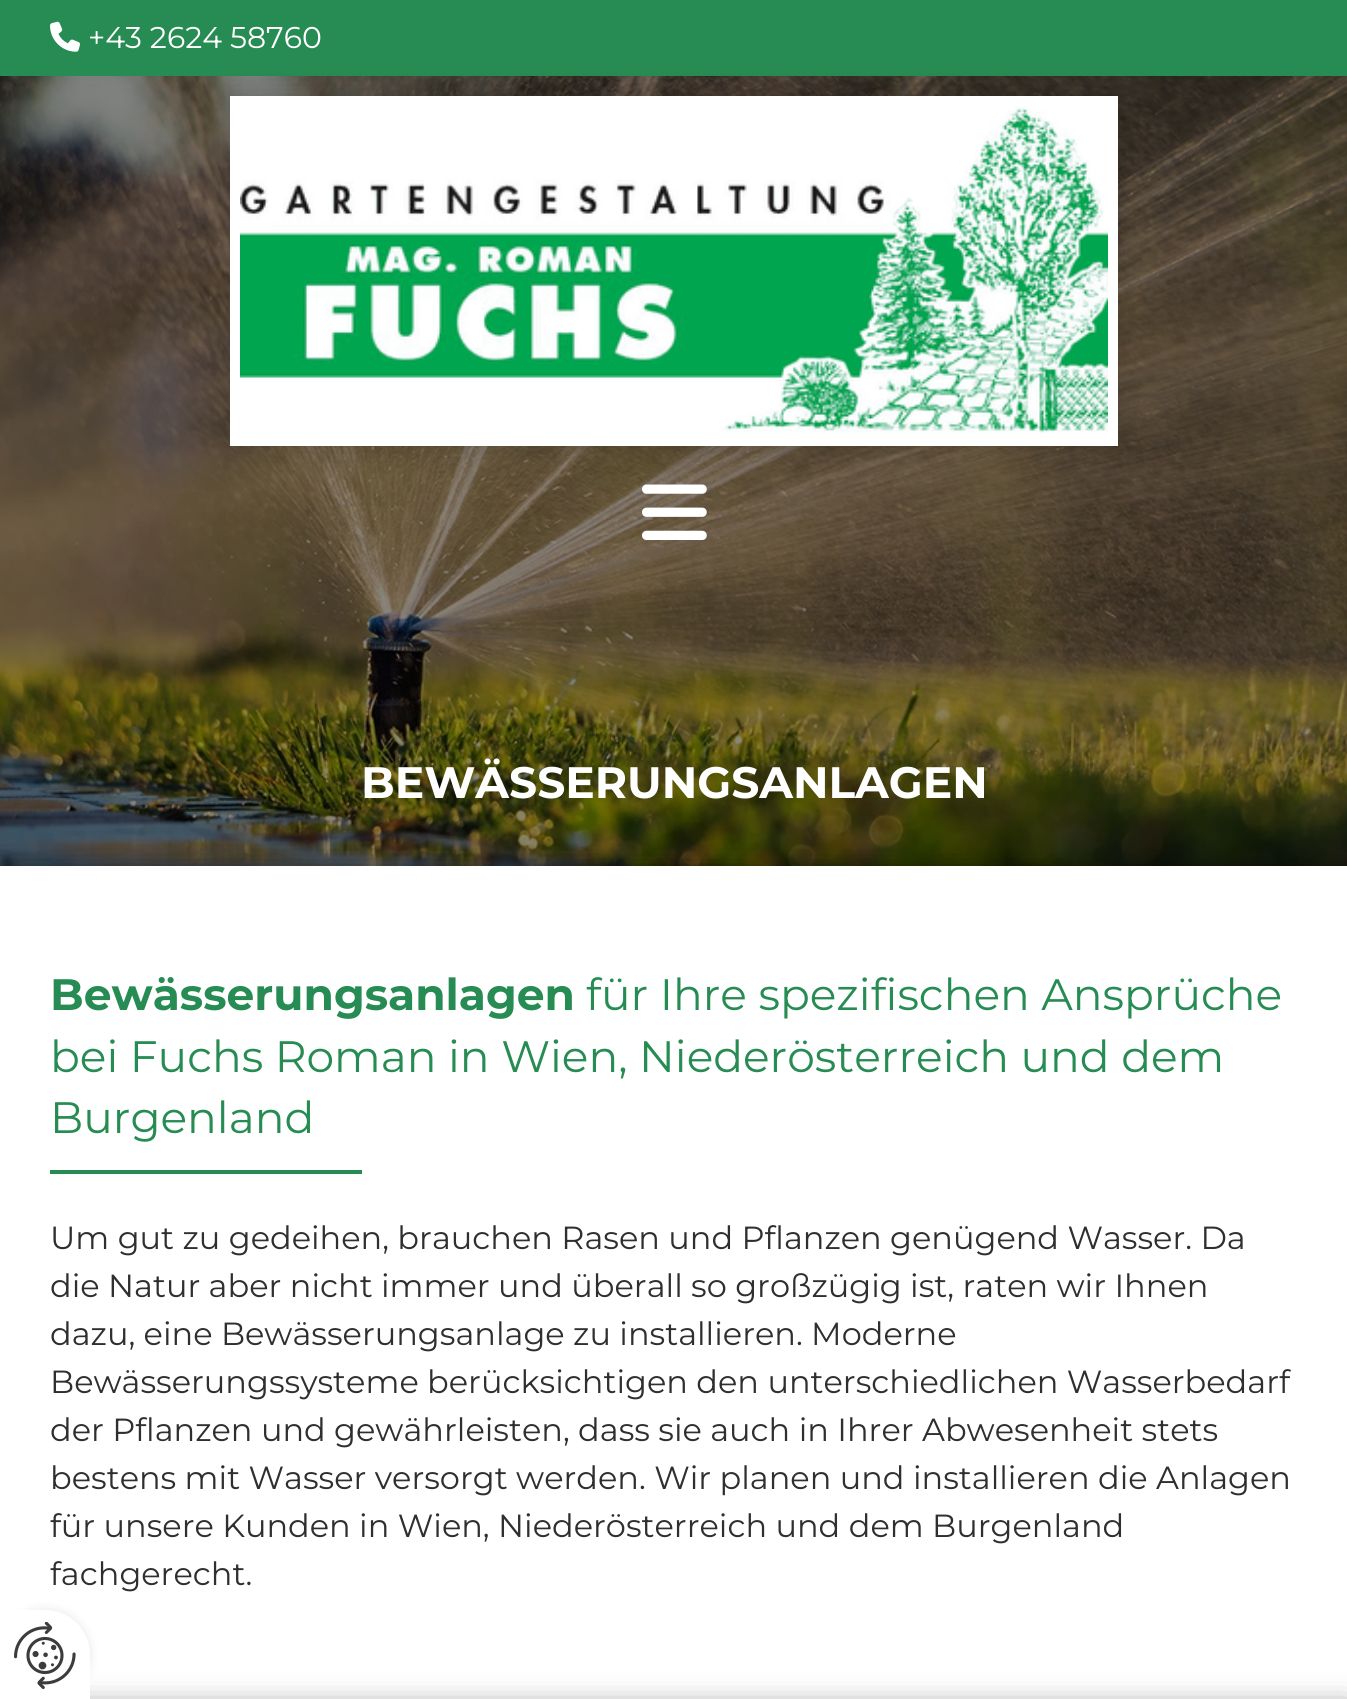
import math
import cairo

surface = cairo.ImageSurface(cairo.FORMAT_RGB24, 1347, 1699)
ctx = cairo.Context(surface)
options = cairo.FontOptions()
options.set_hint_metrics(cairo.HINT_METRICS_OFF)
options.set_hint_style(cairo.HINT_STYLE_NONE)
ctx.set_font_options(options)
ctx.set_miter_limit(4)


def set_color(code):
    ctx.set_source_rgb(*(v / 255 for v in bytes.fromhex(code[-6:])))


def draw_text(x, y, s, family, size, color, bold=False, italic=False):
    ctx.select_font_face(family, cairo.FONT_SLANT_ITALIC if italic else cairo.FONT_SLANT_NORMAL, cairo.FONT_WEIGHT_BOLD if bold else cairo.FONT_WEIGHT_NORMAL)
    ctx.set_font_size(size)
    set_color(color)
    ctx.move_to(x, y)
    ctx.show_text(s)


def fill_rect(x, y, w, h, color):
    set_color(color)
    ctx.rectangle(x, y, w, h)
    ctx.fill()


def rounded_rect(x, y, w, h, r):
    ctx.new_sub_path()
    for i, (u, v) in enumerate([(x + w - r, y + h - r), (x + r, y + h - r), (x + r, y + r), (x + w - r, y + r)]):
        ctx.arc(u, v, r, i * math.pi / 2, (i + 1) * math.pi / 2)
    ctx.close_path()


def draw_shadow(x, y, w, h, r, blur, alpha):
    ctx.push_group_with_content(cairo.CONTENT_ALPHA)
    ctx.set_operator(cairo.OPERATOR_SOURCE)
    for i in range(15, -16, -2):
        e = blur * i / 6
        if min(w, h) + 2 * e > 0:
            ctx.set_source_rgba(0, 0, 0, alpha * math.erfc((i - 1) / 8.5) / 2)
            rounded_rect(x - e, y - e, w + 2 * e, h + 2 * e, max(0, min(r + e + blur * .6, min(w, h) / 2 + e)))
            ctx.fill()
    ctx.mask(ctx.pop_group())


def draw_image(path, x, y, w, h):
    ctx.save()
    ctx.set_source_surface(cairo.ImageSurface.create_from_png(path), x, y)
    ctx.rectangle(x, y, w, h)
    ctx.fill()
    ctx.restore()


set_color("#ffffff")
ctx.paint()
fill_rect(0, 0, 1347, 76, "#278c53")
draw_image("assets/img1.png", 50, 21, 30, 31)
draw_text(88, 48, "+43 2624 58760", "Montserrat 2 Thin", 30, "#ffffff")
draw_image("assets/img4.png", 0, 76, 1347, 790)
set_color("#000000")
draw_shadow(230, 96, 888, 350, 0, 15, 0.2)
ctx.rectangle(235, 101, 878, 340)
set_color("#ffffff")
ctx.set_line_width(10)
ctx.stroke()
draw_image("assets/img2.png", 240, 106, 868, 330)
draw_image("assets/img3.png", 642, 484, 65, 56)
draw_text(361, 798, "BEWÄSSERUNGSANLAGEN", "Montserrat Thin", 44, "#ffffff")
set_color("#000000")
draw_shadow(0, 866, 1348, 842, 0, 15, 0.47)
fill_rect(0, 866, 1347, 833, "#ffffff")
draw_text(50, 1010, "Bewässerungsanlagen", "Montserrat Thin", 44, "#278c53")
draw_text(586, 1010, "für Ihre spezifischen Ansprüche", "Montserrat 2 Thin", 44, "#278c53")
draw_text(50, 1072, "bei Fuchs Roman in Wien, Niederösterreich und dem", "Montserrat 2 Thin", 44, "#278c53")
draw_text(50, 1133, "Burgenland", "Montserrat 2 Thin", 44, "#278c53")
fill_rect(50, 1170, 312, 4, "#278c53")
draw_text(50, 1249, "Um gut zu gedeihen, brauchen Rasen und Pflanzen genügend Wasser. Da", "Montserrat 2 Thin", 32, "#2f2f2f")
draw_text(50, 1297, "die Natur aber nicht immer und überall so großzügig ist, raten wir Ihnen", "Montserrat 2 Thin", 32, "#2f2f2f")
draw_text(50, 1345, "dazu, eine Bewässerungsanlage zu installieren. Moderne", "Montserrat 2 Thin", 32, "#2f2f2f")
draw_text(50, 1393, "Bewässerungssysteme berücksichtigen den unterschiedlichen Wasserbedarf", "Montserrat 2 Thin", 32, "#2f2f2f")
draw_text(50, 1441, "der Pflanzen und gewährleisten, dass sie auch in Ihrer Abwesenheit stets", "Montserrat 2 Thin", 32, "#2f2f2f")
draw_text(50, 1489, "bestens mit Wasser versorgt werden. Wir planen und installieren die Anlagen", "Montserrat 2 Thin", 32, "#2f2f2f")
draw_text(50, 1537, "für unsere Kunden in Wien, Niederösterreich und dem Burgenland", "Montserrat 2 Thin", 32, "#2f2f2f")
draw_text(50, 1585, "fachgerecht.", "Montserrat 2 Thin", 32, "#2f2f2f")
set_color("#000000")
draw_shadow(0, 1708, 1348, 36, 0, 15, 0.47)
draw_shadow(0, 1610, 90, 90, 45, 5, 0.1)
set_color("#ffffff")
ctx.new_path()
ctx.move_to(0, 1610)
ctx.line_to(45, 1610)
ctx.curve_to(70, 1610, 90, 1630, 90, 1655)
ctx.line_to(90, 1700)
ctx.line_to(0, 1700)
ctx.close_path()
ctx.fill()
draw_image("assets/img5.png", 14, 1622, 62, 68)
surface.write_to_png("output.png")
